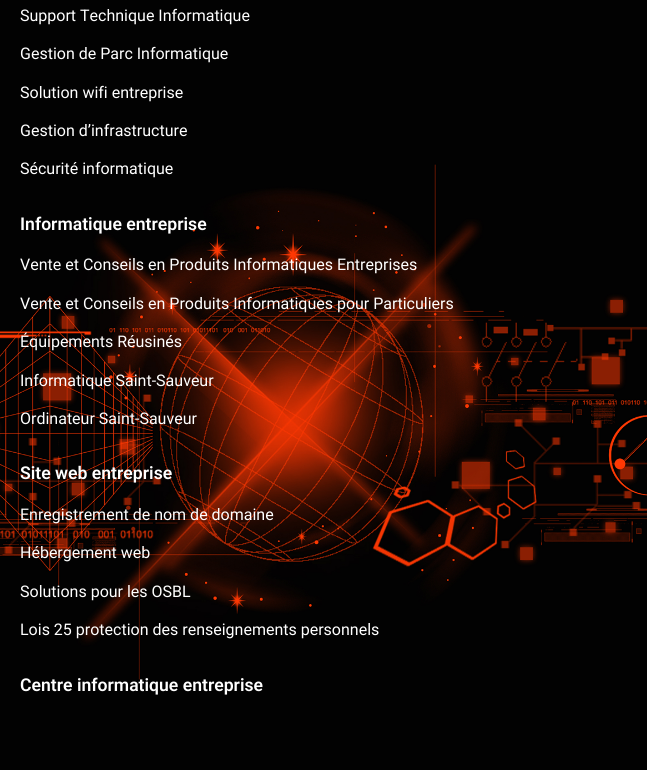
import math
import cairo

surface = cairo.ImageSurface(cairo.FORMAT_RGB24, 647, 770)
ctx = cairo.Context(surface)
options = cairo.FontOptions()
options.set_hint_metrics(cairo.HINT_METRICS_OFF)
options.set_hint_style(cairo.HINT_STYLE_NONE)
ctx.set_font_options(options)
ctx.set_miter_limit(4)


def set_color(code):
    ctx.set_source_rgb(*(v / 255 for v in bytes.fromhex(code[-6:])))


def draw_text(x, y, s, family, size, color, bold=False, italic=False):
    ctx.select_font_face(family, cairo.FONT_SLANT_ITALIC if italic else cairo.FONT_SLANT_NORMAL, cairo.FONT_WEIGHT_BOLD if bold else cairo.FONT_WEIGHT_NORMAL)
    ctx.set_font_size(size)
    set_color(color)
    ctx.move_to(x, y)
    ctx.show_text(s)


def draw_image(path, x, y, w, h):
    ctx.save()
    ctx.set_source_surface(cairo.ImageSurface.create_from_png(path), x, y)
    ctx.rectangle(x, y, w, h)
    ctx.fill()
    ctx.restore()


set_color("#ffffff")
ctx.paint()
draw_image("assets/img1.png", 0, 0, 647, 770)
draw_text(20, 21, "Support Technique Informatique", "Roboto", 16, "#ffffff")
draw_text(20, 59, "Gestion de Parc Informatique", "Roboto", 16, "#ffffff")
draw_text(20, 98, "Solution wifi entreprise", "Roboto", 16, "#ffffff")
draw_text(20, 136, "Gestion d’infrastructure", "Roboto", 16, "#ffffff")
draw_text(20, 174, "Sécurité informatique", "Roboto", 16, "#ffffff")
draw_text(20, 230, "Informatique entreprise", "Roboto SemiBold", 17.6, "#ffffff")
draw_text(20, 270, "Vente et Conseils en Produits Informatiques Entreprises", "Roboto", 16, "#ffffff")
draw_text(20, 309, "Vente et Conseils en Produits Informatiques pour Particuliers", "Roboto", 16, "#ffffff")
draw_text(20, 347, "Équipements Réusinés", "Roboto", 16, "#ffffff")
draw_text(20, 386, "Informatique Saint-Sauveur", "Roboto", 16, "#ffffff")
draw_text(20, 424, "Ordinateur Saint-Sauveur", "Roboto", 16, "#ffffff")
draw_text(20, 479, "Site web entreprise", "Roboto SemiBold", 17.6, "#ffffff")
draw_text(20, 520, "Enregistrement de nom de domaine", "Roboto", 16, "#ffffff")
draw_text(20, 558, "Hébergement web", "Roboto", 16, "#ffffff")
draw_text(20, 597, "Solutions pour les OSBL", "Roboto", 16, "#ffffff")
draw_text(20, 635, "Lois 25 protection des renseignements personnels", "Roboto", 16, "#ffffff")
draw_text(20, 691, "Centre informatique entreprise", "Roboto SemiBold", 17.6, "#ffffff")
surface.write_to_png("output.png")
